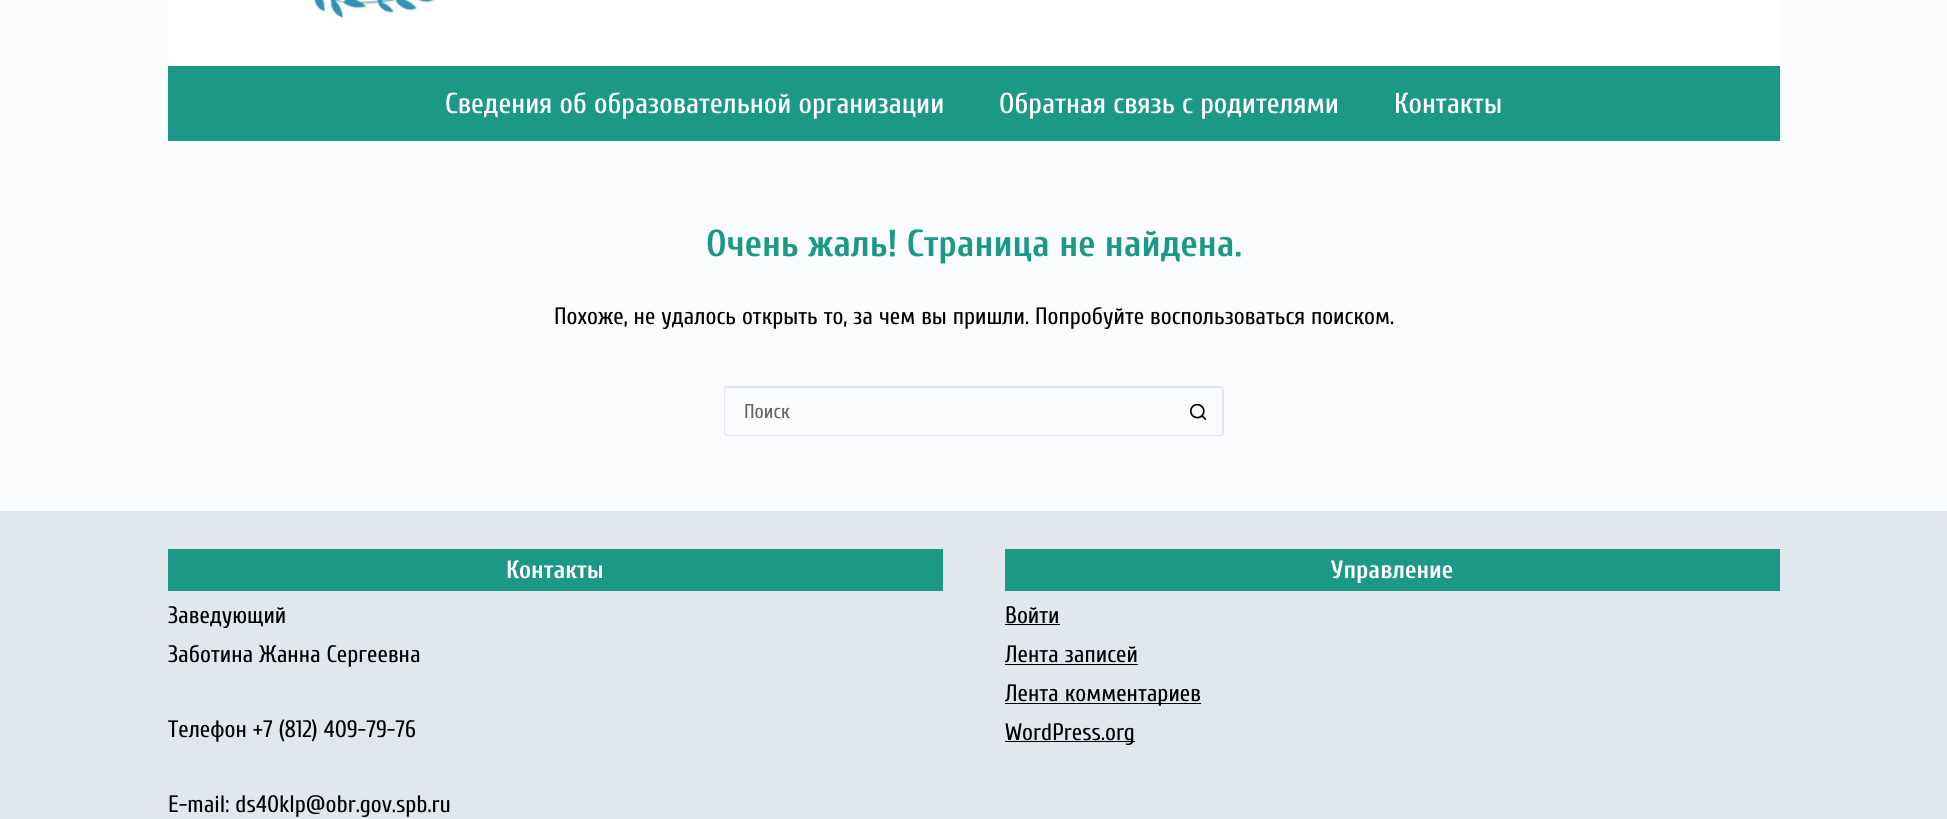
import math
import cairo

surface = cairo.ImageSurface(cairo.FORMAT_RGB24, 1947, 819)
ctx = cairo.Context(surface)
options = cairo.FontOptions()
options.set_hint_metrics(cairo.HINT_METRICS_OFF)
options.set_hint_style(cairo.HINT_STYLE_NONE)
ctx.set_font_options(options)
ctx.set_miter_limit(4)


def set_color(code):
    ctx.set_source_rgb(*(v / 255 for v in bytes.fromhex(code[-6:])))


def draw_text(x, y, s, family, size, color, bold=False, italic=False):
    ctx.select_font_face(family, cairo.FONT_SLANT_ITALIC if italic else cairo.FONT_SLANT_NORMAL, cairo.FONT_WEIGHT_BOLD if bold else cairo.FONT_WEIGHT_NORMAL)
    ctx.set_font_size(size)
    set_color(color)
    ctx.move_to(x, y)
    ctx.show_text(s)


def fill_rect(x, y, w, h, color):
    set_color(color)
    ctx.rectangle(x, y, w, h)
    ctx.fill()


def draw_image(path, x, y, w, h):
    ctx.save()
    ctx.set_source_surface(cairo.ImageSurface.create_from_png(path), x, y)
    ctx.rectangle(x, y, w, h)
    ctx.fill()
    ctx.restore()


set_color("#fafbfc")
ctx.paint()
fill_rect(168, 0, 1612, 66, "#ffffff")
draw_image("assets/img1.png", 305, 0, 131, 20)
fill_rect(168, 66, 1612, 75, "#1c9986")
draw_text(445, 113, "Сведения об образовательной организации", "Cuprum Medium", 28.75, "#ffffff")
draw_text(999, 113, "Обратная связь с родителями", "Cuprum Medium", 28.75, "#ffffff")
draw_text(1394, 113, "Контакты", "Cuprum Medium", 28.75, "#ffffff")
draw_text(706, 256, "Очень жаль! Страница не найдена.", "Cuprum", 37.5, "#1c9986", bold=True)
draw_text(554, 324, "Похоже, не удалось открыть то, за чем вы пришли. Попробуйте воспользоваться поиском.", "Cuprum", 23.75, "#000000")
set_color("#e1e8ed")
ctx.set_fill_rule(cairo.FILL_RULE_EVEN_ODD)
ctx.new_path()
ctx.move_to(728, 386)
ctx.line_to(1174, 386)
ctx.line_to(1174, 436)
ctx.line_to(728, 436)
ctx.curve_to(725, 436, 724, 435, 724, 432)
ctx.line_to(724, 390)
ctx.curve_to(724, 388, 725, 386, 728, 386)
ctx.close_path()
ctx.move_to(728, 388)
ctx.line_to(1174, 388)
ctx.line_to(1174, 435)
ctx.line_to(728, 435)
ctx.curve_to(726, 435, 725, 434, 725, 432)
ctx.line_to(725, 390)
ctx.curve_to(725, 389, 726, 388, 728, 388)
ctx.close_path()
ctx.fill()
draw_text(744, 418, "Поиск", "Cuprum", 20, "#646465")
set_color("#e1e8ed")
ctx.new_path()
ctx.move_to(1174, 386)
ctx.line_to(1220, 386)
ctx.curve_to(1222, 386, 1224, 388, 1224, 390)
ctx.line_to(1224, 432)
ctx.curve_to(1224, 435, 1222, 436, 1220, 436)
ctx.line_to(1174, 436)
ctx.close_path()
ctx.move_to(1174, 388)
ctx.line_to(1220, 388)
ctx.curve_to(1221, 388, 1222, 389, 1222, 390)
ctx.line_to(1222, 432)
ctx.curve_to(1222, 434, 1221, 435, 1220, 435)
ctx.line_to(1174, 435)
ctx.close_path()
ctx.fill()
draw_image("assets/img2.png", 1190, 404, 16, 16)
fill_rect(0, 511, 1947, 308, "#e1e8ed")
fill_rect(168, 549, 775, 42, "#1c9986")
draw_text(506, 578, "Контакты", "Cuprum", 25, "#ffffff", bold=True)
draw_text(168, 623, "Заведующий", "Cuprum", 23.75, "#000000")
draw_text(168, 662, "Заботина Жанна Сергеевна", "Cuprum", 23.75, "#000000")
draw_text(168, 737, "Телефон +7 (812) 409-79-76", "Cuprum", 23.75, "#000000")
draw_text(168, 812, "E-mail: ds40klp@obr.gov.spb.ru", "Cuprum", 23.75, "#000000")
fill_rect(1005, 549, 775, 42, "#1c9986")
draw_text(1331, 578, "Управление", "Cuprum", 25, "#ffffff", bold=True)
draw_text(1005, 623, "Войти", "Cuprum", 23.75, "#000000")
fill_rect(1005, 624, 55, 1, "#000000")
draw_text(1005, 662, "Лента записей", "Cuprum", 23.75, "#000000")
fill_rect(1005, 664, 133, 1, "#000000")
fill_rect(1005, 703, 196, 1, "#000000")
draw_text(1005, 701, "Лента комментариев", "Cuprum", 23.75, "#000000")
fill_rect(1005, 741, 130, 1, "#000000")
draw_text(1005, 740, "WordPress.org", "Cuprum", 23.75, "#000000")
surface.write_to_png("output.png")
